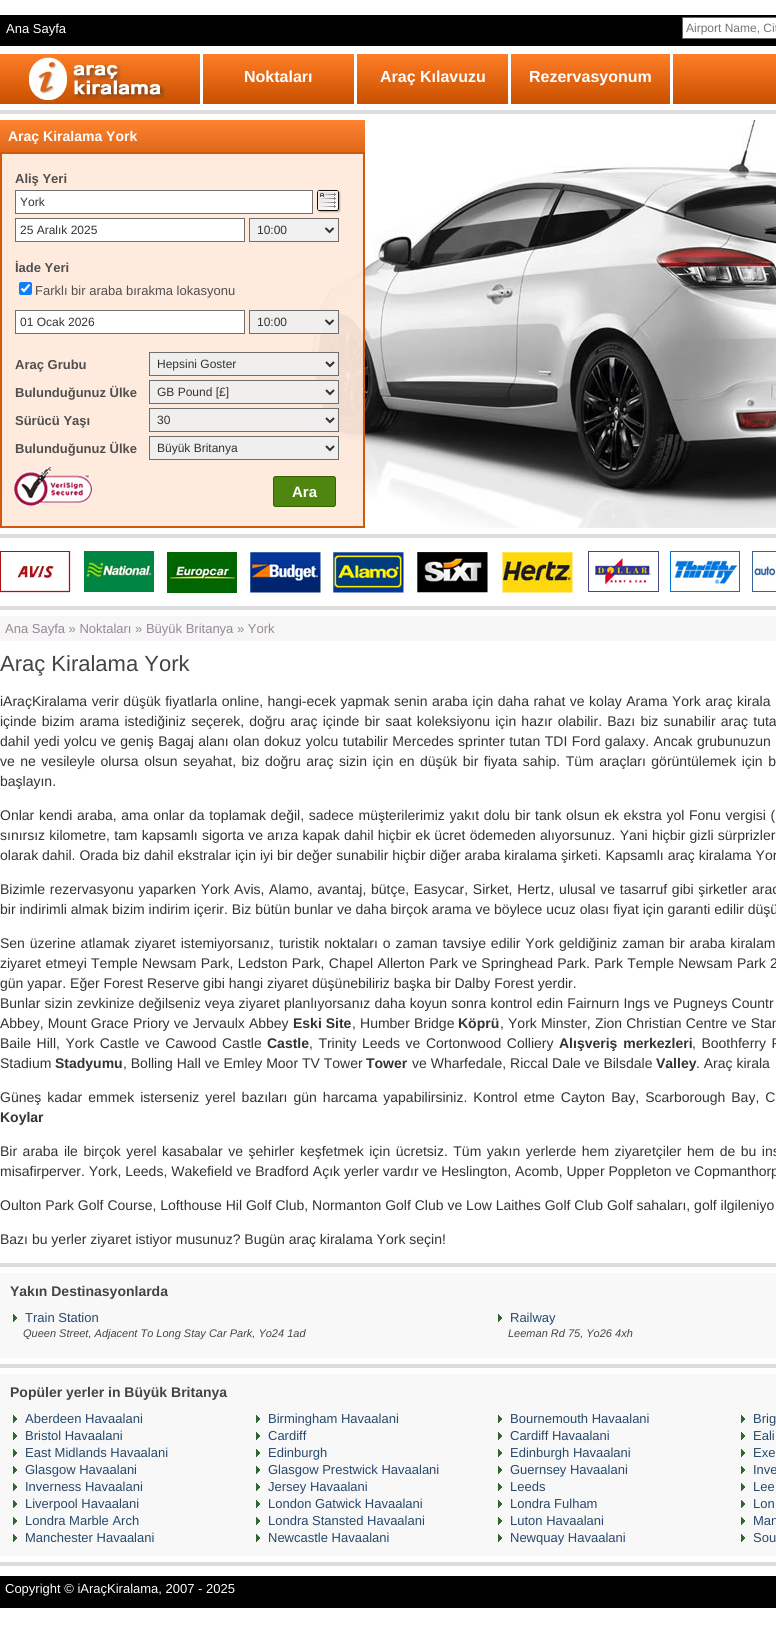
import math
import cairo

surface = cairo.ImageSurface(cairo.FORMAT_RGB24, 776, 1642)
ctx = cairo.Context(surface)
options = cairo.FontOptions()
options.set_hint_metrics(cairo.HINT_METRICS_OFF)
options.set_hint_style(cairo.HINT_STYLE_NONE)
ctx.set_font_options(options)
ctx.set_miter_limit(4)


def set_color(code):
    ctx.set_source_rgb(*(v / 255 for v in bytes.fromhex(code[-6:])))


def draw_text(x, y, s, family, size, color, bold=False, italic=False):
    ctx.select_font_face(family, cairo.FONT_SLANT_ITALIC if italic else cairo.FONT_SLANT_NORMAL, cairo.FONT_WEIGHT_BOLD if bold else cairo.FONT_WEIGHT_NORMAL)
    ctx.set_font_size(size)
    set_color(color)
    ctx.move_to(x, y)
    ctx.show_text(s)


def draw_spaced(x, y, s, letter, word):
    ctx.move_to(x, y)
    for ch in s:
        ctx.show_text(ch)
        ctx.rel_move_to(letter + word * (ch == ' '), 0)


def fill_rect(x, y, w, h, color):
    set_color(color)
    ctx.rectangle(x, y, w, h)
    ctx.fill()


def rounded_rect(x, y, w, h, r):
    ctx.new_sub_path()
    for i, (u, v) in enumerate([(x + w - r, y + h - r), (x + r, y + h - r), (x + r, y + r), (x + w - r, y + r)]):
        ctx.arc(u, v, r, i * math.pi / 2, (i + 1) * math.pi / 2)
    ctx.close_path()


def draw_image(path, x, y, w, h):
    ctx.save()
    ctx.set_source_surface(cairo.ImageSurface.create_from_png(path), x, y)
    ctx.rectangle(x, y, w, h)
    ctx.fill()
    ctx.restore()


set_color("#ffffff")
ctx.paint()
fill_rect(0, 15, 776, 31, "#000000")
draw_text(6, 33, "Ana Sayfa", "Liberation Sans", 13, "#ffffff")
ctx.rectangle(682.5, 17.5, 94, 21)
ctx.fill_preserve()
set_color("#666666")
ctx.set_line_width(1)
ctx.stroke()
draw_text(686, 32, "Airport Name, Cit", "Liberation Sans", 12, "#757575")
draw_image("assets/img1.png", 0, 54, 776, 50)
fill_rect(200, 54, 3, 50, "#ffffff")
draw_image("assets/img2.png", 24, 54, 144, 48)
fill_rect(354, 54, 3, 50, "#ffffff")
draw_text(244, 82, "Noktaları", "Liberation Sans", 16, "#ffffff", bold=True)
fill_rect(508, 54, 3, 50, "#ffffff")
draw_text(380, 82, "Araç Kılavuzu", "Liberation Sans", 16, "#ffffff", bold=True)
fill_rect(670, 54, 3, 50, "#ffffff")
draw_text(529, 82, "Rezervasyonum", "Liberation Sans", 16, "#ffffff", bold=True)
fill_rect(0, 110, 776, 4, "#dddddd")
draw_image("assets/img3.png", 274, 120, 502, 408)
ctx.set_source_rgba(1, 0.918, 0.859, 0.94)
ctx.rectangle(0, 120, 365, 408)
ctx.fill()
draw_image("assets/img4.png", 0, 120, 365, 32)
draw_text(8, 141, "Araç Kiralama York", "Liberation Sans", 14, "#ffffff", bold=True)
ctx.rectangle(1, 153, 363, 374)
ctx.set_source_rgba(0.792, 0.318, 0, 0.94)
ctx.set_line_width(2)
ctx.stroke()
draw_text(15, 183, "Aliş Yeri", "Liberation Sans", 13, "#4f4f4f", bold=True)
set_color("#ffffff")
ctx.rectangle(15.5, 190.5, 297, 23)
ctx.fill_preserve()
set_color("#6f6f6f")
ctx.set_line_width(1)
ctx.stroke()
draw_text(20, 206, "York", "Liberation Sans", 12, "#333333")
draw_image("assets/img5.png", 317, 190, 24, 23)
set_color("#ffffff")
ctx.rectangle(15.5, 218.5, 229, 23)
ctx.fill_preserve()
set_color("#6f6f6f")
ctx.stroke()
draw_text(20, 234, "25 Aralık 2025", "Liberation Sans", 12, "#333333")
set_color("#f0f0f0")
ctx.rectangle(249.5, 218.5, 89, 23)
ctx.fill_preserve()
set_color("#6f6f6f")
ctx.stroke()
ctx.new_path()
ctx.move_to(325.5, 228)
ctx.line_to(329.5, 232)
ctx.line_to(333.5, 228)
set_color("#2f2f2f")
ctx.set_line_width(2)
ctx.stroke()
draw_text(257, 234, "10:00", "Liberation Sans", 12, "#333333")
draw_text(15, 272, "İade Yeri", "Liberation Sans", 13, "#4f4f4f", bold=True)
set_color("#0f7dff")
rounded_rect(19, 282, 13, 13, 2)
ctx.fill()
ctx.new_path()
ctx.move_to(21.5, 288.5)
ctx.line_to(24, 291)
ctx.line_to(29.5, 284.5)
set_color("#ffffff")
ctx.set_line_width(2.1)
ctx.stroke()
draw_text(35, 295, "Farklı bir araba bırakma lokasyonu", "Liberation Sans", 13, "#4f4f4f")
set_color("#ffffff")
ctx.rectangle(15.5, 310.5, 229, 23)
ctx.fill_preserve()
set_color("#6f6f6f")
ctx.set_line_width(1)
ctx.stroke()
draw_text(20, 326, "01 Ocak 2026", "Liberation Sans", 12, "#333333")
ctx.set_source_rgba(0.937, 0.937, 0.937, 0.94)
ctx.rectangle(249.5, 310.5, 89, 23)
ctx.fill_preserve()
set_color("#6e6e6e")
ctx.stroke()
ctx.new_path()
ctx.move_to(325.5, 320)
ctx.line_to(329.5, 324)
ctx.line_to(333.5, 320)
set_color("#2e2e2e")
ctx.set_line_width(2)
ctx.stroke()
draw_text(257, 326, "10:00", "Liberation Sans", 12, "#333333")
draw_text(15, 369, "Araç Grubu", "Liberation Sans", 13, "#4f4f4f", bold=True)
ctx.set_source_rgba(0.937, 0.937, 0.937, 0.94)
ctx.rectangle(149.5, 352.5, 189, 23)
ctx.fill_preserve()
set_color("#6e6e6e")
ctx.set_line_width(1)
ctx.stroke()
ctx.new_path()
ctx.move_to(326, 362)
ctx.line_to(330, 366)
ctx.line_to(334, 362)
set_color("#2e2e2e")
ctx.set_line_width(2)
ctx.stroke()
draw_text(157, 368, "Hepsini Goster", "Liberation Sans", 12, "#333333")
draw_text(15, 397, "Bulunduğunuz Ülke", "Liberation Sans", 13, "#4f4f4f", bold=True)
ctx.set_source_rgba(0.937, 0.937, 0.937, 0.94)
ctx.rectangle(149.5, 380.5, 189, 23)
ctx.fill_preserve()
set_color("#6e6e6e")
ctx.set_line_width(1)
ctx.stroke()
ctx.new_path()
ctx.move_to(326, 390)
ctx.line_to(330, 394)
ctx.line_to(334, 390)
set_color("#2e2e2e")
ctx.set_line_width(2)
ctx.stroke()
draw_text(157, 396, "GB Pound [£]", "Liberation Sans", 12, "#333333")
draw_text(15, 425, "Sürücü Yaşı", "Liberation Sans", 13, "#4f4f4f", bold=True)
ctx.set_source_rgba(0.937, 0.937, 0.937, 0.94)
ctx.rectangle(149.5, 408.5, 189, 23)
ctx.fill_preserve()
set_color("#6e6e6e")
ctx.set_line_width(1)
ctx.stroke()
ctx.new_path()
ctx.move_to(326, 418)
ctx.line_to(330, 422)
ctx.line_to(334, 418)
set_color("#2e2e2e")
ctx.set_line_width(2)
ctx.stroke()
draw_text(157, 424, "30", "Liberation Sans", 12, "#333333")
draw_text(15, 453, "Bulunduğunuz Ülke", "Liberation Sans", 13, "#4f4f4f", bold=True)
ctx.set_source_rgba(0.937, 0.937, 0.937, 0.94)
ctx.rectangle(149.5, 436.5, 189, 23)
ctx.fill_preserve()
set_color("#6e6e6e")
ctx.set_line_width(1)
ctx.stroke()
ctx.new_path()
ctx.move_to(326, 446)
ctx.line_to(330, 450)
ctx.line_to(334, 446)
set_color("#2e2e2e")
ctx.set_line_width(2)
ctx.stroke()
draw_text(157, 452, "Büyük Britanya", "Liberation Sans", 12, "#333333")
draw_image("assets/img6.png", 14, 467, 78, 39)
set_color("#4f860f")
rounded_rect(273, 476, 63, 31, 3)
ctx.fill()
rounded_rect(273.5, 476.5, 62, 30, 2.5)
ctx.set_source_rgba(0.2, 0.38, 0.004, 0.94)
ctx.set_line_width(1)
ctx.stroke()
draw_text(292, 497, "Ara", "Liberation Sans", 15, "#ffffff", bold=True)
fill_rect(0, 534, 776, 4, "#dddddd")
draw_image("assets/img7.png", 0, 551, 776, 42)
fill_rect(0, 606, 776, 4, "#dddddd")
fill_rect(0, 616, 776, 25, "#f6f6f6")
draw_text(5, 633, "Ana Sayfa » Noktaları » Büyük Britanya » York", "Liberation Sans", 13, "#968896")
draw_text(0, 671, "Araç Kiralama York", "Liberation Sans", 22, "#444444")
ctx.set_font_size(14)
set_color("#333333")
draw_spaced(0, 706, "iAraçKiralama verir düşük fiyatlarla online, hangi-ecek yapmak senin araba için daha rahat ve kolay Arama York araç kirala", 0, 0.6)
draw_spaced(0, 726, "içinde bizim arama istediğiniz seçerek, doğru araç içinde bir saat koleksiyonu için hazır olabilir. Bazı biz sunabilir araç tuta", 0, 1.3)
draw_spaced(0, 746, "dahil yedi yolcu ve geniş Bagaj alanı olan dokuz yolcu tutabilir Mercedes sprinter tutan TDI Ford galaxy. Ancak grubunuzun", 0, 0.5)
draw_spaced(0, 766, "ve ne vesileyle olursa olsun seyahat, biz doğru araç sizin için en düşük bir fiyata sahip. Tüm araçları görüntülemek için b", 0, 1.6)
draw_text(0, 786, "başlayın.", "Liberation Sans", 14, "#333333")
draw_spaced(0, 820, "Onlar kendi araba, ama onlar da toplamak değil, sadece müşterilerimiz yakıt dolu bir tank olsun ek ekstra yol Fonu vergisi (", 0, 0.75)
draw_spaced(0, 840, "sınırsız kilometre, tam kapsamlı sigorta ve arıza kapak dahil hiçbir ek ücret ödemeden alıyorsunuz. Yani hiçbir gizli sürprizler", 0, 0.3)
draw_text(0, 860, "olarak dahil. Orada biz dahil ekstralar için iyi bir değer sunabilir hiçbir diğer araba kiralama şirketi. Kapsamlı araç kiralama Yor", "Liberation Sans", 14, "#333333")
draw_spaced(0, 894, "Bizimle rezervasyonu yaparken York Avis, Alamo, avantaj, bütçe, Easycar, Sirket, Hertz, ulusal ve tasarruf gibi şirketler arac", 0, 0.75)
draw_text(0, 914, "bir indirimli almak bizim indirim içerir. Biz bütün bunlar ve daha birçok arama ve böylece ucuz olası fiyat için garanti edilir düşü", "Liberation Sans", 14, "#333333")
draw_spaced(0, 948, "Sen üzerine atlamak ziyaret istemiyorsanız, turistik noktaları o zaman tavsiye edilir York geldiğiniz zaman bir araba kiralam", 0, 1)
draw_spaced(0, 968, "ziyaret etmeyi Temple Newsam Park, Ledston Park, Chapel Allerton Park ve Springhead Park. Park Temple Newsam Park 2", 0, 0.4)
draw_text(0, 988, "gün yapar. Eğer Forest Reserve gibi hangi ziyaret düşünebiliriz başka bir Dalby Forest yerdir.", "Liberation Sans", 14, "#333333")
draw_spaced(0, 1008, "Bunlar sizin zevkinize değilseniz veya ziyaret planlıyorsanız daha koyun sonra kontrol edin Fairnurn Ings ve Pugneys Countr", 0, 0.25)
draw_spaced(0, 1028, "Abbey, Mount Grace Priory ve Jervaulx Abbey", 0, 0.25)
draw_text(293, 1028, "Eski Site", "Liberation Sans", 14, "#333333", bold=True)
ctx.select_font_face("Liberation Sans")
draw_spaced(352, 1028, ", Humber Bridge", 0, 0.25)
draw_text(458, 1028, "Köprü", "Liberation Sans", 14, "#333333", bold=True)
ctx.select_font_face("Liberation Sans")
draw_spaced(500, 1028, ", York Minster, Zion Christian Centre ve Stan", 0, 0.25)
draw_spaced(0, 1048, "Baile Hill, York Castle ve Cawood Castle", 0, 1.6)
draw_text(267, 1048, "Castle", "Liberation Sans", 14, "#333333", bold=True)
ctx.select_font_face("Liberation Sans")
draw_spaced(309, 1048, ", Trinity Leeds ve Cortonwood Colliery", 0, 1.6)
ctx.select_font_face("Liberation Sans", cairo.FONT_SLANT_NORMAL, cairo.FONT_WEIGHT_BOLD)
draw_spaced(559, 1048, "Alışveriş merkezleri", 0, 2)
ctx.select_font_face("Liberation Sans")
draw_spaced(692, 1048, ", Boothferry P", 0, 1.6)
draw_text(0, 1068, "Stadium", "Liberation Sans", 14, "#333333")
draw_text(55, 1068, "Stadyumu", "Liberation Sans", 14, "#333333", bold=True)
draw_text(123, 1068, ", Bolling Hall ve Emley Moor TV Tower", "Liberation Sans", 14, "#333333")
draw_text(366, 1068, "Tower", "Liberation Sans", 14, "#333333", bold=True)
draw_text(412, 1068, "ve Wharfedale, Riccal Dale ve Bilsdale", "Liberation Sans", 14, "#333333")
draw_text(656, 1068, "Valley", "Liberation Sans", 14, "#333333", bold=True)
draw_text(696, 1068, ". Araç kirala", "Liberation Sans", 14, "#333333")
draw_spaced(0, 1102, "Güneş kadar emmek isterseniz yerel bazıları gün harcama yapabilirsiniz. Kontrol etme Cayton Bay, Scarborough Bay, C", 0, 2.1)
draw_text(0, 1122, "Koylar", "Liberation Sans", 14, "#333333", bold=True)
ctx.select_font_face("Liberation Sans")
draw_spaced(0, 1156, "Bir araba ile birçok yerel kasabalar ve şehirler keşfetmek için ücretsiz. Tüm yakın yerlerde hem ziyaretçiler hem de bu ins", 0, 1.6)
draw_text(0, 1176, "misafirperver. York, Leeds, Wakefield ve Bradford Açık yerler vardır ve Heslington, Acomb, Upper Poppleton ve Copmanthorp", "Liberation Sans", 14, "#333333")
draw_text(0, 1210, "Oulton Park Golf Course, Lofthouse Hil Golf Club, Normanton Golf Club ve Low Laithes Golf Club Golf sahaları, golf ilgileniyo", "Liberation Sans", 14, "#333333")
draw_text(0, 1244, "Bazı bu yerler ziyaret istiyor musunuz? Bugün araç kiralama York seçin!", "Liberation Sans", 14, "#333333")
fill_rect(0, 1263, 776, 4, "#dddddd")
fill_rect(0, 1273, 776, 85, "#f8f8f8")
draw_text(10, 1296, "Yakın Destinasyonlarda", "Liberation Sans", 14, "#444444", bold=True)
draw_image("assets/img8.png", 13, 1314, 4, 8)
draw_text(25, 1322, "Train Station", "Liberation Sans", 13, "#27496c")
draw_text(23, 1337, "Queen Street, Adjacent To Long Stay Car Park, Yo24 1ad", "Liberation Sans", 11, "#444444", italic=True)
draw_image("assets/img8.png", 498, 1314, 4, 8)
draw_text(510, 1322, "Railway", "Liberation Sans", 13, "#27496c")
draw_text(508, 1337, "Leeman Rd 75, Yo26 4xh", "Liberation Sans", 11, "#444444", italic=True)
fill_rect(0, 1364, 776, 4, "#dddddd")
fill_rect(0, 1374, 776, 182, "#f8f8f8")
draw_text(10, 1397, "Popüler yerler in Büyük Britanya", "Liberation Sans", 14, "#444444", bold=True)
draw_image("assets/img8.png", 13, 1415, 4, 8)
draw_text(25, 1423, "Aberdeen Havaalani", "Liberation Sans", 13, "#27496c")
draw_image("assets/img8.png", 256, 1415, 4, 8)
draw_text(268, 1423, "Birmingham Havaalani", "Liberation Sans", 13, "#27496c")
draw_image("assets/img8.png", 498, 1415, 4, 8)
draw_text(510, 1423, "Bournemouth Havaalani", "Liberation Sans", 13, "#27496c")
draw_image("assets/img8.png", 741, 1415, 4, 8)
draw_text(753, 1423, "Brig", "Liberation Sans", 13, "#27496c")
draw_image("assets/img8.png", 13, 1432, 4, 8)
draw_text(25, 1440, "Bristol Havaalani", "Liberation Sans", 13, "#27496c")
draw_image("assets/img8.png", 256, 1432, 4, 8)
draw_text(268, 1440, "Cardiff", "Liberation Sans", 13, "#27496c")
draw_image("assets/img8.png", 498, 1432, 4, 8)
draw_text(510, 1440, "Cardiff Havaalani", "Liberation Sans", 13, "#27496c")
draw_image("assets/img8.png", 741, 1432, 4, 8)
draw_text(753, 1440, "Eali", "Liberation Sans", 13, "#27496c")
draw_image("assets/img8.png", 13, 1449, 4, 8)
draw_text(25, 1457, "East Midlands Havaalani", "Liberation Sans", 13, "#27496c")
draw_image("assets/img8.png", 256, 1449, 4, 8)
draw_text(268, 1457, "Edinburgh", "Liberation Sans", 13, "#27496c")
draw_image("assets/img8.png", 498, 1449, 4, 8)
draw_text(510, 1457, "Edinburgh Havaalani", "Liberation Sans", 13, "#27496c")
draw_image("assets/img8.png", 741, 1449, 4, 8)
draw_text(753, 1457, "Exe", "Liberation Sans", 13, "#27496c")
draw_image("assets/img8.png", 13, 1466, 4, 8)
draw_text(25, 1474, "Glasgow Havaalani", "Liberation Sans", 13, "#27496c")
draw_image("assets/img8.png", 256, 1466, 4, 8)
draw_text(268, 1474, "Glasgow Prestwick Havaalani", "Liberation Sans", 13, "#27496c")
draw_image("assets/img8.png", 498, 1466, 4, 8)
draw_text(510, 1474, "Guernsey Havaalani", "Liberation Sans", 13, "#27496c")
draw_image("assets/img8.png", 741, 1466, 4, 8)
draw_text(753, 1474, "Inve", "Liberation Sans", 13, "#27496c")
draw_image("assets/img8.png", 13, 1483, 4, 8)
draw_text(25, 1491, "Inverness Havaalani", "Liberation Sans", 13, "#27496c")
draw_image("assets/img8.png", 256, 1483, 4, 8)
draw_text(268, 1491, "Jersey Havaalani", "Liberation Sans", 13, "#27496c")
draw_image("assets/img8.png", 498, 1483, 4, 8)
draw_text(510, 1491, "Leeds", "Liberation Sans", 13, "#27496c")
draw_image("assets/img8.png", 741, 1483, 4, 8)
draw_text(753, 1491, "Lee", "Liberation Sans", 13, "#27496c")
draw_image("assets/img8.png", 13, 1500, 4, 8)
draw_text(25, 1508, "Liverpool Havaalani", "Liberation Sans", 13, "#27496c")
draw_image("assets/img8.png", 256, 1500, 4, 8)
draw_text(268, 1508, "London Gatwick Havaalani", "Liberation Sans", 13, "#27496c")
draw_image("assets/img8.png", 498, 1500, 4, 8)
draw_text(510, 1508, "Londra Fulham", "Liberation Sans", 13, "#27496c")
draw_image("assets/img8.png", 741, 1500, 4, 8)
draw_text(753, 1508, "Lon", "Liberation Sans", 13, "#27496c")
draw_image("assets/img8.png", 13, 1517, 4, 8)
draw_text(25, 1525, "Londra Marble Arch", "Liberation Sans", 13, "#27496c")
draw_image("assets/img8.png", 256, 1517, 4, 8)
draw_text(268, 1525, "Londra Stansted Havaalani", "Liberation Sans", 13, "#27496c")
draw_image("assets/img8.png", 498, 1517, 4, 8)
draw_text(510, 1525, "Luton Havaalani", "Liberation Sans", 13, "#27496c")
draw_image("assets/img8.png", 741, 1517, 4, 8)
draw_text(753, 1525, "Man", "Liberation Sans", 13, "#27496c")
draw_image("assets/img8.png", 13, 1534, 4, 8)
draw_text(25, 1542, "Manchester Havaalani", "Liberation Sans", 13, "#27496c")
draw_image("assets/img8.png", 256, 1534, 4, 8)
draw_text(268, 1542, "Newcastle Havaalani", "Liberation Sans", 13, "#27496c")
draw_image("assets/img8.png", 498, 1534, 4, 8)
draw_text(510, 1542, "Newquay Havaalani", "Liberation Sans", 13, "#27496c")
draw_image("assets/img8.png", 741, 1534, 4, 8)
draw_text(753, 1542, "Sou", "Liberation Sans", 13, "#27496c")
fill_rect(0, 1562, 776, 4, "#dddddd")
fill_rect(0, 1576, 776, 32, "#000000")
draw_text(5, 1593, "Copyright © iAraçKiralama, 2007 - 2025", "Liberation Sans", 13, "#ffffff")
surface.write_to_png("output.png")
